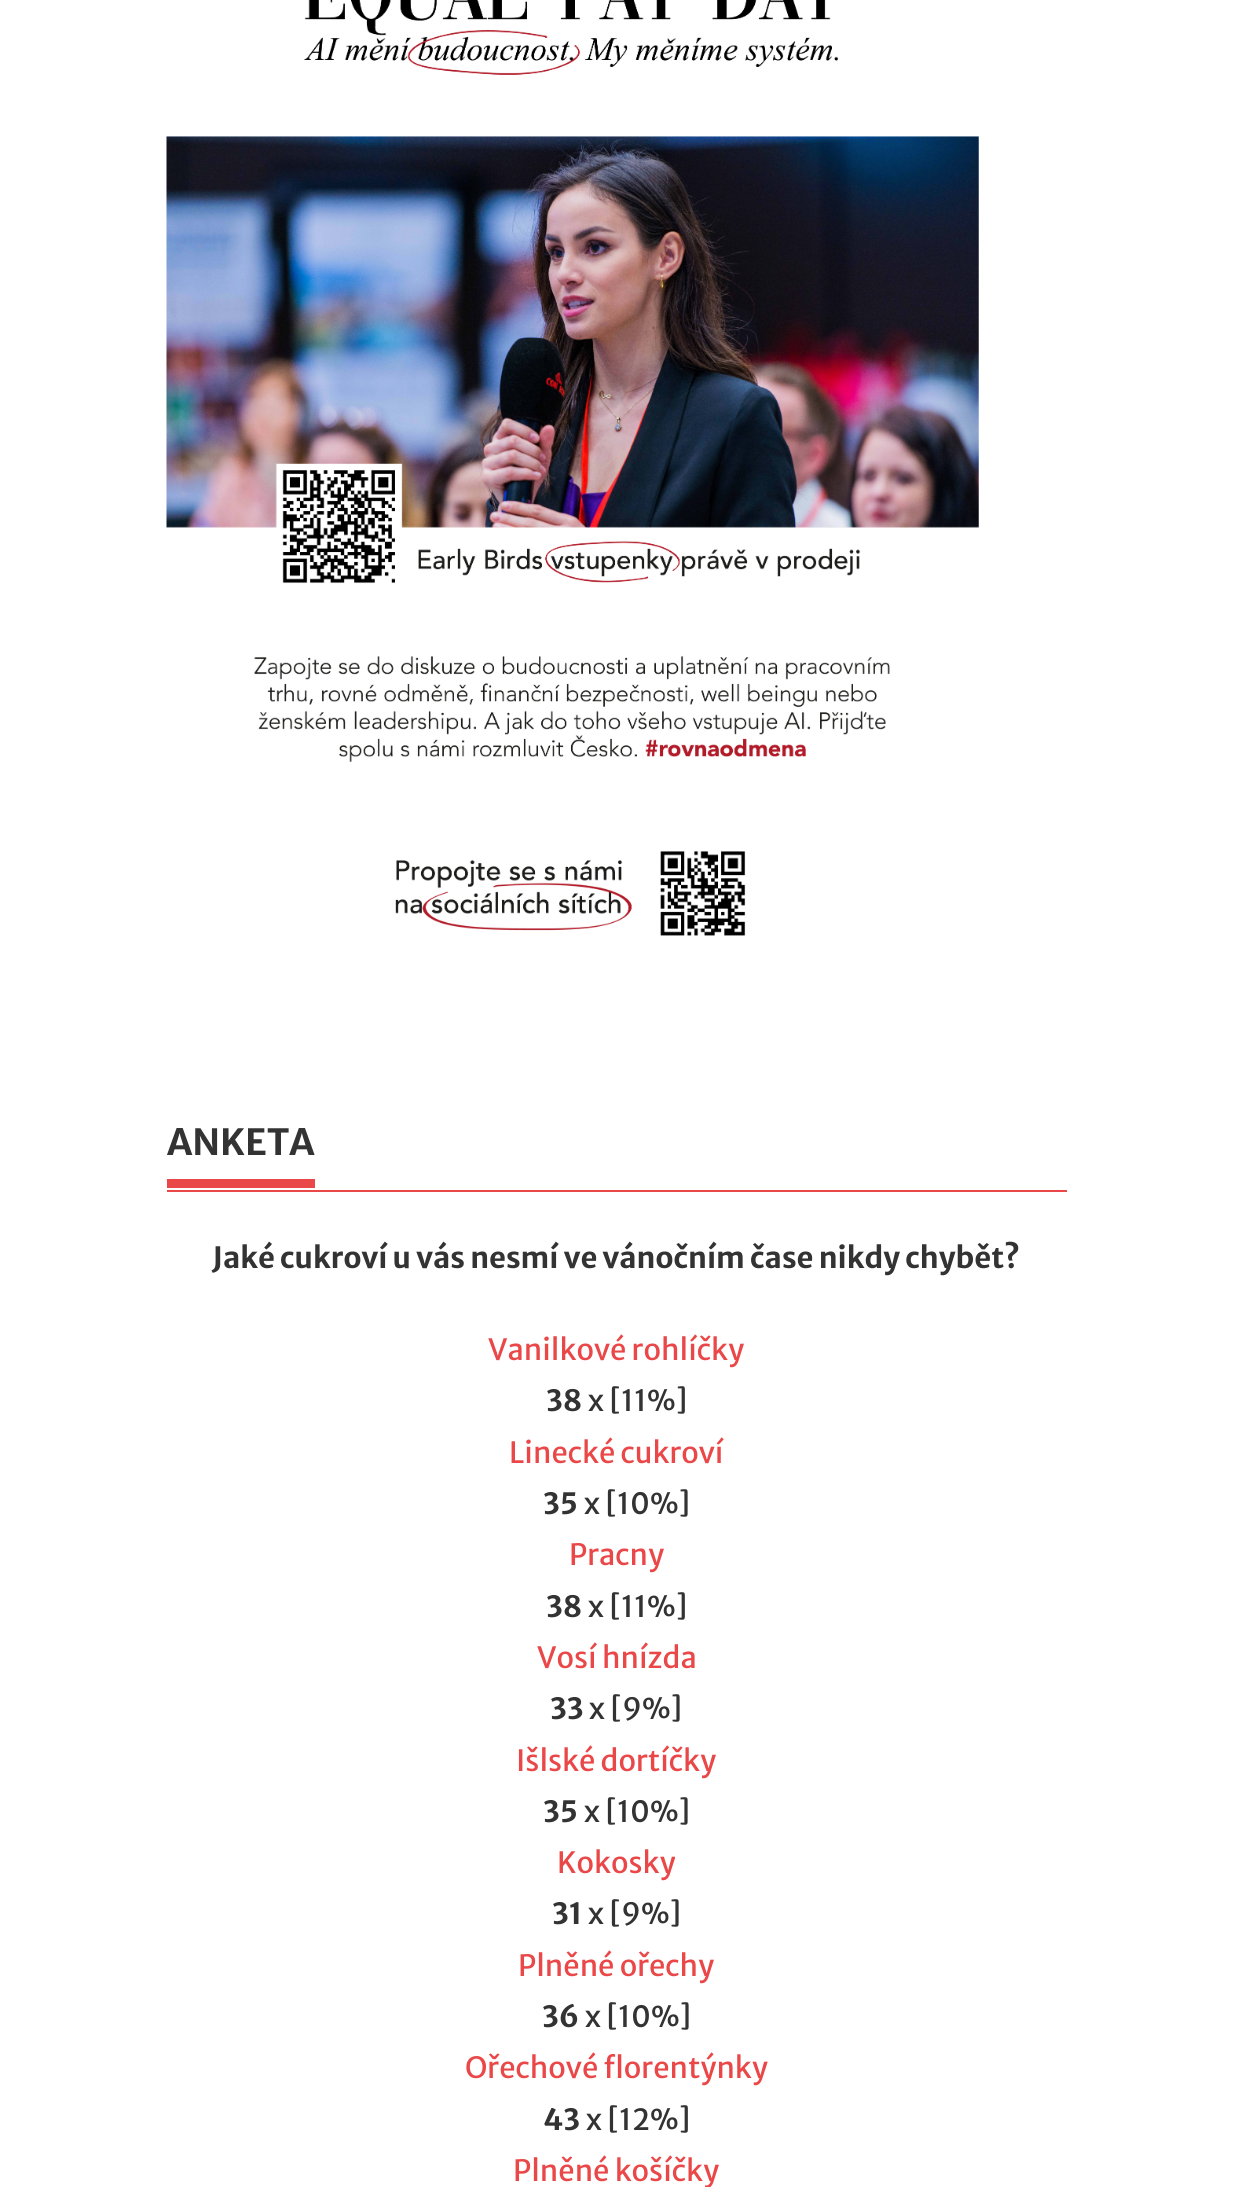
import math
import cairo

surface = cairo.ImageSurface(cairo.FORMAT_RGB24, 1233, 2187)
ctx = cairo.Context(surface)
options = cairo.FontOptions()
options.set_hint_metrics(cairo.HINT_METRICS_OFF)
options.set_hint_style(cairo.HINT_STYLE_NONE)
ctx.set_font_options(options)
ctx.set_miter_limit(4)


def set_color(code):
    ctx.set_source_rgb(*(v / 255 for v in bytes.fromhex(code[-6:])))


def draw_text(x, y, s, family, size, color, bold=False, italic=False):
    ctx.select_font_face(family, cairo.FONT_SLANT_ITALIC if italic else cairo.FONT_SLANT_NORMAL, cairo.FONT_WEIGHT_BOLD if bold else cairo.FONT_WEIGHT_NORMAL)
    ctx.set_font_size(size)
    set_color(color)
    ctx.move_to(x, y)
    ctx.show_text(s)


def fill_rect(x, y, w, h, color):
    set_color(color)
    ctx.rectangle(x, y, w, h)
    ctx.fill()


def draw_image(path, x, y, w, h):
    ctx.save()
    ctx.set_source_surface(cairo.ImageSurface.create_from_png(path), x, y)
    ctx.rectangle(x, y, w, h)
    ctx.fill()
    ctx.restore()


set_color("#ffffff")
ctx.paint()
draw_image("assets/img1.png", 166, 0, 813, 936)
fill_rect(167, 1190, 900, 2, "#ea4748")
draw_text(167, 1155, "ANKETA", "Merriweather Sans", 36, "#333333", bold=True)
fill_rect(167, 1179, 148, 9, "#ea4748")
draw_text(212, 1268, "Jaké cukroví u vás nesmí ve vánočním čase nikdy chybět?", "Merriweather Sans", 29.25, "#333333", bold=True)
draw_text(488, 1360, "Vanilkové rohlíčky", "Merriweather Sans", 29.25, "#ea4748")
draw_text(546, 1411, "38", "Merriweather Sans", 29.25, "#333333", bold=True)
draw_text(588, 1411, "x [11%]", "Merriweather Sans", 29.25, "#333333")
draw_text(509, 1463, "Linecké cukroví", "Merriweather Sans", 29.25, "#ea4748")
draw_text(543, 1514, "35", "Merriweather Sans", 29.25, "#333333", bold=True)
draw_text(584, 1514, "x [10%]", "Merriweather Sans", 29.25, "#333333")
draw_text(569, 1565, "Pracny", "Merriweather Sans", 29.25, "#ea4748")
draw_text(546, 1617, "38", "Merriweather Sans", 29.25, "#333333", bold=True)
draw_text(588, 1617, "x [11%]", "Merriweather Sans", 29.25, "#333333")
draw_text(537, 1668, "Vosí hnízda", "Merriweather Sans", 29.25, "#ea4748")
draw_text(550, 1719, "33", "Merriweather Sans", 29.25, "#333333", bold=True)
draw_text(589, 1719, "x [9%]", "Merriweather Sans", 29.25, "#333333")
draw_text(516, 1771, "Išlské dortíčky", "Merriweather Sans", 29.25, "#ea4748")
draw_text(543, 1822, "35", "Merriweather Sans", 29.25, "#333333", bold=True)
draw_text(584, 1822, "x [10%]", "Merriweather Sans", 29.25, "#333333")
draw_text(557, 1873, "Kokosky", "Merriweather Sans", 29.25, "#ea4748")
draw_text(552, 1924, "31", "Merriweather Sans", 29.25, "#333333", bold=True)
draw_text(588, 1924, "x [9%]", "Merriweather Sans", 29.25, "#333333")
draw_text(518, 1976, "Plněné ořechy", "Merriweather Sans", 29.25, "#ea4748")
draw_text(542, 2027, "36", "Merriweather Sans", 29.25, "#333333", bold=True)
draw_text(585, 2027, "x [10%]", "Merriweather Sans", 29.25, "#333333")
draw_text(465, 2078, "Ořechové florentýnky", "Merriweather Sans", 29.25, "#ea4748")
draw_text(543, 2130, "43", "Merriweather Sans", 29.25, "#333333", bold=True)
draw_text(586, 2130, "x [12%]", "Merriweather Sans", 29.25, "#333333")
draw_text(513, 2181, "Plněné košíčky", "Merriweather Sans", 29.25, "#ea4748")
surface.write_to_png("output.png")
